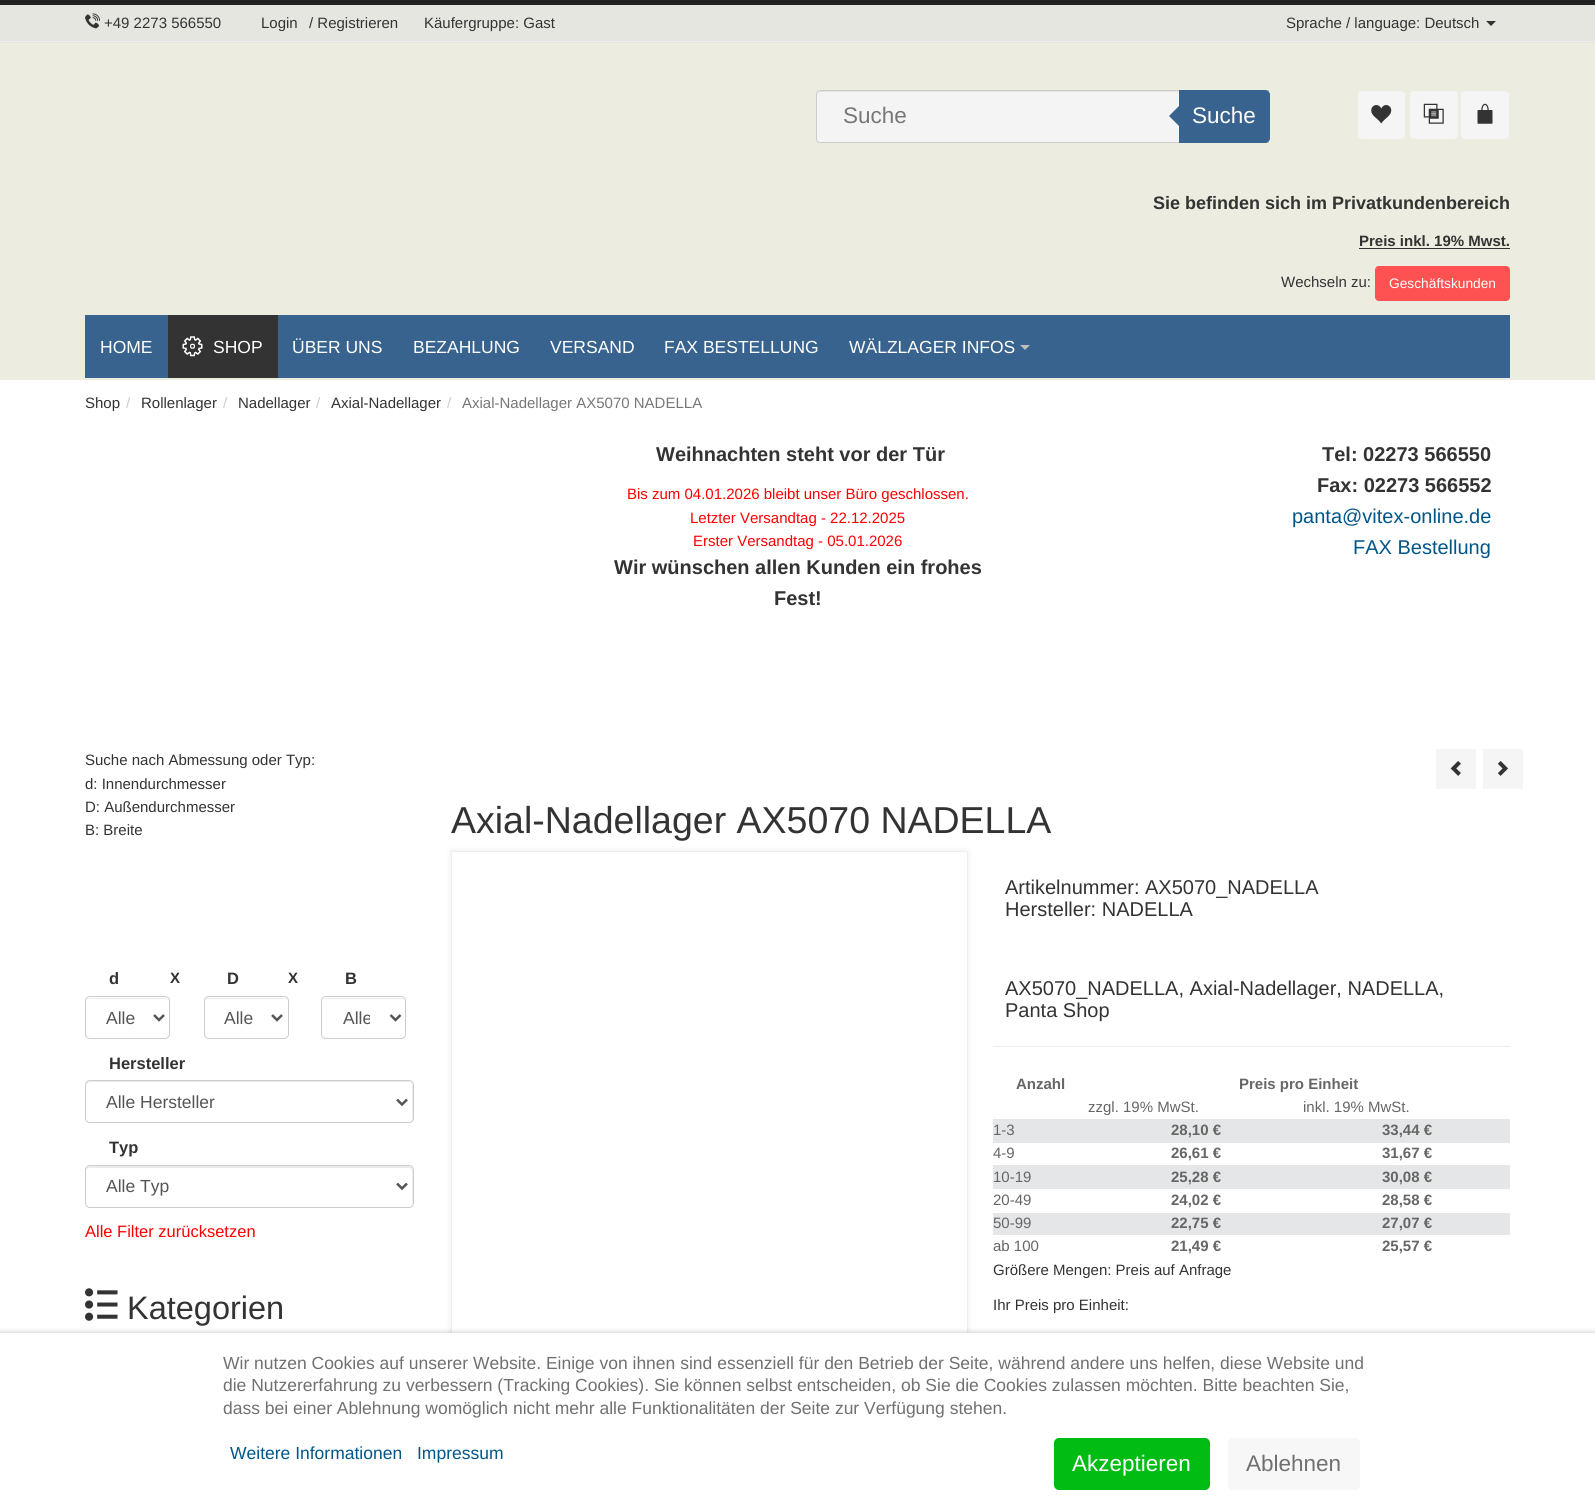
import math
import cairo

surface = cairo.ImageSurface(cairo.FORMAT_RGB24, 1595, 1508)
ctx = cairo.Context(surface)
options = cairo.FontOptions()
options.set_hint_metrics(cairo.HINT_METRICS_OFF)
options.set_hint_style(cairo.HINT_STYLE_NONE)
ctx.set_font_options(options)
ctx.set_miter_limit(4)


def set_color(code):
    ctx.set_source_rgb(*(v / 255 for v in bytes.fromhex(code[-6:])))


def draw_text(x, y, s, family, size, color, bold=False, italic=False):
    ctx.select_font_face(family, cairo.FONT_SLANT_ITALIC if italic else cairo.FONT_SLANT_NORMAL, cairo.FONT_WEIGHT_BOLD if bold else cairo.FONT_WEIGHT_NORMAL)
    ctx.set_font_size(size)
    set_color(color)
    ctx.move_to(x, y)
    ctx.show_text(s)


def fill_rect(x, y, w, h, color):
    set_color(color)
    ctx.rectangle(x, y, w, h)
    ctx.fill()


def rounded_rect(x, y, w, h, r):
    ctx.new_sub_path()
    for i, (u, v) in enumerate([(x + w - r, y + h - r), (x + r, y + h - r), (x + r, y + r), (x + w - r, y + r)]):
        ctx.arc(u, v, r, i * math.pi / 2, (i + 1) * math.pi / 2)
    ctx.close_path()


def draw_shadow(x, y, w, h, r, blur, alpha):
    ctx.push_group_with_content(cairo.CONTENT_ALPHA)
    ctx.set_operator(cairo.OPERATOR_SOURCE)
    for i in range(15, -16, -2):
        e = blur * i / 6
        if min(w, h) + 2 * e > 0:
            ctx.set_source_rgba(0, 0, 0, alpha * math.erfc((i - 1) / 8.5) / 2)
            rounded_rect(x - e, y - e, w + 2 * e, h + 2 * e, max(0, min(r + e + blur * .6, min(w, h) / 2 + e)))
            ctx.fill()
    ctx.mask(ctx.pop_group())


def draw_image(path, x, y, w, h):
    ctx.save()
    ctx.set_source_surface(cairo.ImageSurface.create_from_png(path), x, y)
    ctx.rectangle(x, y, w, h)
    ctx.fill()
    ctx.restore()


set_color("#ffffff")
ctx.paint()
fill_rect(0, 5, 1595, 38, "#e6e6e1")
fill_rect(0, 0, 1595, 5, "#222222")
fill_rect(0, 41, 1595, 1, "#eeeeee")
draw_image("assets/img1.png", 85, 13, 15, 16)
draw_text(104, 28, "+49 2273 566550", "Liberation Sans", 15, "#333333")
draw_text(261, 28, "Login", "Liberation Sans", 15, "#333333")
draw_text(309, 28, "/ Registrieren", "Liberation Sans", 15, "#333333")
draw_text(424, 28, "Käufergruppe: Gast", "Liberation Sans", 15, "#333333")
draw_text(1286, 28, "Sprache / language: Deutsch", "Liberation Sans", 15, "#333333")
ctx.new_path()
ctx.move_to(1486, 21)
ctx.line_to(1496, 21)
ctx.line_to(1491, 26)
ctx.close_path()
ctx.fill()
fill_rect(0, 43, 1595, 337, "#ecece0")
set_color("#f4f4f4")
ctx.new_path()
ctx.move_to(820, 90)
ctx.line_to(1269, 90)
ctx.line_to(1269, 143)
ctx.line_to(820, 143)
ctx.curve_to(818, 143, 816, 141, 816, 139)
ctx.line_to(816, 94)
ctx.curve_to(816, 92, 818, 90, 820, 90)
ctx.close_path()
ctx.fill()
set_color("#e2e2e2")
ctx.new_path()
ctx.move_to(820, 92)
ctx.line_to(1268, 92)
ctx.line_to(1268, 91)
ctx.line_to(820, 91)
ctx.line_to(818, 92)
ctx.line_to(818, 95)
ctx.curve_to(818, 94, 819, 92, 820, 92)
ctx.close_path()
ctx.fill()
ctx.new_path()
ctx.move_to(820, 90.5)
ctx.line_to(1268.5, 90.5)
ctx.line_to(1268.5, 142.5)
ctx.line_to(820, 142.5)
ctx.curve_to(818, 142.5, 816.5, 141, 816.5, 139)
ctx.line_to(816.5, 94)
ctx.curve_to(816.5, 92, 818, 90.5, 820, 90.5)
ctx.close_path()
set_color("#cccccc")
ctx.set_line_width(1)
ctx.stroke()
draw_text(843, 123, "Suche", "Liberation Sans", 22.5, "#777777")
set_color("#37638e")
ctx.new_path()
ctx.move_to(1179.5, 90.5)
ctx.line_to(1265, 90.5)
ctx.curve_to(1267.5, 90.5, 1269.5, 92.5, 1269.5, 95)
ctx.line_to(1269.5, 138)
ctx.curve_to(1269.5, 140.5, 1267.5, 142.5, 1265, 142.5)
ctx.line_to(1179.5, 142.5)
ctx.close_path()
ctx.fill_preserve()
ctx.stroke()
ctx.new_path()
ctx.move_to(1179, 106)
ctx.line_to(1179, 126)
ctx.line_to(1169, 116)
ctx.close_path()
ctx.fill()
draw_text(1192, 123, "Suche", "Liberation Sans", 22.5, "#ffffff")
set_color("#f5f5f5")
rounded_rect(1358.5, 91.5, 46, 47, 3.5)
ctx.fill_preserve()
ctx.stroke()
draw_image("assets/img2.png", 1371, 105, 21, 19)
rounded_rect(1410.5, 91.5, 47, 47, 3.5)
ctx.fill_preserve()
ctx.stroke()
draw_image("assets/img3.png", 1423, 103, 21, 21)
rounded_rect(1461.5, 91.5, 47, 47, 3.5)
ctx.fill_preserve()
ctx.stroke()
draw_image("assets/img4.png", 1477, 103, 16, 21)
draw_text(1153, 209, "Sie befinden sich im Privatkundenbereich", "Liberation Sans", 18, "#333333", bold=True)
draw_text(1359, 246, "Preis inkl. 19% Mwst.", "Liberation Sans", 15, "#333333", bold=True)
fill_rect(1359, 248, 151, 1, "#333333")
draw_text(1281, 287, "Wechseln zu:", "Liberation Sans", 15, "#333333")
set_color("#fe5252")
rounded_rect(1375.5, 266.5, 134, 34, 3.5)
ctx.fill_preserve()
ctx.stroke()
draw_text(1389, 288, "Geschäftskunden", "Liberation Sans", 13.75, "#ffffff")
fill_rect(85, 315, 1425, 63, "#37638e")
draw_text(100, 353, "HOME", "Liberation Sans", 17.5, "#ffffff")
fill_rect(168, 315, 110, 63, "#333333")
draw_image("assets/img5.png", 182, 336, 21, 21)
draw_text(213, 353, "SHOP", "Liberation Sans", 17.5, "#ffffff")
draw_text(292, 353, "ÜBER UNS", "Liberation Sans", 17.5, "#ffffff")
draw_text(413, 353, "BEZAHLUNG", "Liberation Sans", 17.5, "#ffffff")
draw_text(550, 353, "VERSAND", "Liberation Sans", 17.5, "#ffffff")
draw_text(664, 353, "FAX BESTELLUNG", "Liberation Sans", 17.5, "#ffffff")
draw_text(849, 353, "WÄLZLAGER INFOS", "Liberation Sans", 17.5, "#ffffff")
set_color("#bebebe")
ctx.new_path()
ctx.move_to(1020, 345)
ctx.line_to(1030, 345)
ctx.line_to(1025, 350)
ctx.close_path()
ctx.fill()
draw_text(85, 408, "Shop", "Liberation Sans", 15, "#333333")
draw_text(126, 408, "/", "Liberation Sans", 15, "#cccccc")
draw_text(141, 408, "Rollenlager", "Liberation Sans", 15, "#333333")
draw_text(223, 408, "/", "Liberation Sans", 15, "#cccccc")
draw_text(238, 408, "Nadellager", "Liberation Sans", 15, "#333333")
draw_text(316, 408, "/", "Liberation Sans", 15, "#cccccc")
draw_text(331, 408, "Axial-Nadellager", "Liberation Sans", 15, "#333333")
draw_text(447, 408, "/", "Liberation Sans", 15, "#cccccc")
draw_text(462, 408, "Axial-Nadellager AX5070 NADELLA", "Liberation Sans", 15, "#777777")
draw_text(656, 461, "Weihnachten steht vor der Tür", "Liberation Sans", 20, "#333333", bold=True)
draw_text(627, 499, "Bis zum 04.01.2026 bleibt unser Büro geschlossen.", "Liberation Sans", 15, "#ff0000")
draw_text(690, 523, "Letzter Versandtag - 22.12.2025", "Liberation Sans", 15, "#ff0000")
draw_text(693, 546, "Erster Versandtag - 05.01.2026", "Liberation Sans", 15, "#ff0000")
draw_text(614, 574, "Wir wünschen allen Kunden ein frohes", "Liberation Sans", 20, "#333333", bold=True)
draw_text(774, 605, "Fest!", "Liberation Sans", 20, "#333333", bold=True)
draw_text(1322, 461, "Tel: 02273 566550", "Liberation Sans", 20, "#333333", bold=True)
draw_text(1317, 492, "Fax: 02273 566552", "Liberation Sans", 20, "#333333", bold=True)
draw_text(1292, 523, "panta@vitex-online.de", "Liberation Sans", 20, "#005689")
draw_text(1353, 554, "FAX Bestellung", "Liberation Sans", 20, "#005689")
draw_text(85, 765, "Suche nach Abmessung oder Typ:", "Liberation Sans", 15, "#333333")
draw_text(85, 789, "d: Innendurchmesser", "Liberation Sans", 15, "#333333")
draw_text(85, 812, "D: Außendurchmesser", "Liberation Sans", 15, "#333333")
draw_text(85, 835, "B: Breite", "Liberation Sans", 15, "#333333")
draw_text(109, 984, "d", "Liberation Sans", 16.5, "#333333", bold=True)
set_color("#ececec")
ctx.new_path()
ctx.move_to(90, 999)
ctx.line_to(165, 999)
ctx.curve_to(167, 999, 169, 1000, 169, 1002)
ctx.curve_to(169, 1000, 167, 998, 165, 998)
ctx.line_to(90, 998)
ctx.curve_to(88, 998, 86, 1000, 86, 1002)
ctx.curve_to(86, 1000, 88, 999, 90, 999)
ctx.close_path()
ctx.fill()
rounded_rect(85.5, 996.5, 84, 42, 4.5)
set_color("#cccccc")
ctx.stroke()
ctx.new_path()
ctx.move_to(154, 1015)
ctx.line_to(159, 1020)
ctx.line_to(164, 1015)
set_color("#555555")
ctx.set_line_width(2.5)
ctx.stroke()
ctx.save()
ctx.rectangle(106, 1006, 28, 23)
ctx.clip()
draw_text(106, 1024, "Alle", "Liberation Sans", 17.5, "#555555")
ctx.restore()
draw_text(170, 983, "X", "Liberation Sans", 15, "#333333", bold=True)
draw_text(227, 984, "D", "Liberation Sans", 16.5, "#333333", bold=True)
set_color("#ececec")
ctx.new_path()
ctx.move_to(209, 999)
ctx.line_to(284, 999)
ctx.curve_to(286, 999, 288, 1000, 288, 1002)
ctx.curve_to(288, 1000, 286, 998, 284, 998)
ctx.line_to(209, 998)
ctx.curve_to(207, 998, 205, 1000, 205, 1002)
ctx.curve_to(205, 1000, 207, 999, 209, 999)
ctx.close_path()
ctx.fill()
rounded_rect(204.5, 996.5, 84, 42, 4.5)
set_color("#cccccc")
ctx.set_line_width(1)
ctx.stroke()
ctx.new_path()
ctx.move_to(272, 1015)
ctx.line_to(277, 1020)
ctx.line_to(282, 1015)
set_color("#555555")
ctx.set_line_width(2.5)
ctx.stroke()
draw_text(224, 1024, "Alle", "Liberation Sans", 17.5, "#555555")
draw_text(288, 983, "X", "Liberation Sans", 15, "#333333", bold=True)
draw_text(345, 984, "B", "Liberation Sans", 16.5, "#333333", bold=True)
set_color("#ececec")
ctx.new_path()
ctx.move_to(326, 999)
ctx.line_to(401, 999)
ctx.curve_to(403, 999, 405, 1000, 405, 1002)
ctx.line_to(404, 999)
ctx.line_to(402, 998)
ctx.line_to(327, 998)
ctx.line_to(324, 999)
ctx.close_path()
ctx.fill()
rounded_rect(321.5, 996.5, 84, 42, 4.5)
set_color("#cccccc")
ctx.set_line_width(1)
ctx.stroke()
ctx.new_path()
ctx.move_to(390.5, 1015)
ctx.line_to(395.5, 1020)
ctx.line_to(400.5, 1015)
set_color("#555555")
ctx.set_line_width(2.5)
ctx.stroke()
ctx.save()
ctx.rectangle(343, 1006, 27, 23)
ctx.clip()
draw_text(343, 1024, "Alle", "Liberation Sans", 17.5, "#555555")
ctx.restore()
draw_text(109, 1069, "Hersteller", "Liberation Sans", 16.5, "#333333", bold=True)
set_color("#ececec")
ctx.new_path()
ctx.move_to(90, 1082)
ctx.line_to(409, 1082)
ctx.curve_to(411, 1082, 412, 1084, 412, 1086)
ctx.line_to(412, 1120)
ctx.curve_to(413, 1119, 413, 1118, 413, 1117)
ctx.line_to(413, 1085)
ctx.curve_to(413, 1083, 411, 1081, 409, 1081)
ctx.line_to(90, 1081)
ctx.curve_to(88, 1081, 86, 1083, 86, 1085)
ctx.line_to(86, 1086)
ctx.curve_to(86, 1084, 88, 1082, 90, 1082)
ctx.close_path()
ctx.fill()
rounded_rect(85.5, 1080.5, 328, 42, 4.5)
set_color("#cccccc")
ctx.set_line_width(1)
ctx.stroke()
ctx.new_path()
ctx.move_to(397, 1099.5)
ctx.line_to(402, 1104.5)
ctx.line_to(407, 1099.5)
set_color("#555555")
ctx.set_line_width(2.5)
ctx.stroke()
draw_text(106, 1108, "Alle Hersteller", "Liberation Sans", 17.5, "#555555")
draw_text(109, 1153, "Typ", "Liberation Sans", 16.5, "#333333", bold=True)
set_color("#ececec")
ctx.new_path()
ctx.move_to(90, 1168)
ctx.line_to(409, 1168)
ctx.curve_to(411, 1168, 412, 1169, 412, 1171)
ctx.line_to(412, 1205)
ctx.curve_to(413, 1204, 413, 1203, 413, 1202)
ctx.line_to(413, 1170)
ctx.curve_to(413, 1168, 411, 1166, 409, 1166)
ctx.line_to(90, 1166)
ctx.curve_to(88, 1166, 86, 1168, 86, 1170)
ctx.line_to(86, 1171)
ctx.curve_to(86, 1169, 88, 1168, 90, 1168)
ctx.close_path()
ctx.fill()
rounded_rect(85.5, 1165.5, 328, 42, 4.5)
set_color("#cccccc")
ctx.set_line_width(1)
ctx.stroke()
ctx.new_path()
ctx.move_to(397, 1183.5)
ctx.line_to(402, 1188.5)
ctx.line_to(407, 1183.5)
set_color("#555555")
ctx.set_line_width(2.5)
ctx.stroke()
draw_text(106, 1192, "Alle Typ", "Liberation Sans", 17.5, "#555555")
draw_text(85, 1237, "Alle Filter zurücksetzen", "Liberation Sans", 16.5, "#ff0000")
draw_image("assets/img6.png", 85, 1288, 33, 33)
draw_text(127, 1319, "Kategorien", "Liberation Sans", 32.5, "#333333")
fill_rect(1436, 749, 40, 40, "#f5f5f5")
draw_image("assets/img7.png", 1450, 761, 11, 15)
fill_rect(1483, 749, 40, 40, "#f5f5f5")
draw_image("assets/img8.png", 1497, 761, 11, 15)
draw_text(451, 833, "Axial-Nadellager AX5070 NADELLA", "Liberation Sans", 37.5, "#333333")
set_color("#323232")
draw_shadow(451, 851, 517, 518, 0, 3, 0.1)
fill_rect(452, 852, 515, 481, "#ffffff")
ctx.rectangle(451.5, 851.5, 516, 517)
set_color("#eeeeee")
ctx.set_line_width(1)
ctx.stroke()
draw_text(1005, 894, "Artikelnummer: AX5070_NADELLA", "Liberation Sans", 20, "#333333")
draw_text(1005, 916, "Hersteller: NADELLA", "Liberation Sans", 20, "#333333")
draw_text(1005, 995, "AX5070_NADELLA, Axial-Nadellager, NADELLA,", "Liberation Sans", 20, "#333333")
draw_text(1005, 1017, "Panta Shop", "Liberation Sans", 20, "#333333")
fill_rect(993, 1046, 517, 1, "#eeeeee")
draw_text(1016, 1089, "Anzahl", "Liberation Sans", 15, "#666666", bold=True)
draw_text(1239, 1089, "Preis pro Einheit", "Liberation Sans", 15, "#666666", bold=True)
draw_text(1088, 1112, "zzgl. 19% MwSt.", "Liberation Sans", 15, "#666666")
draw_text(1303, 1112, "inkl. 19% MwSt.", "Liberation Sans", 15, "#666666")
fill_rect(993, 1119, 517, 24, "#e5e6e7")
draw_text(993, 1135, "1-3", "Liberation Sans", 15, "#666666")
draw_text(1171, 1135, "28,10 €", "Liberation Sans", 15, "#666666", bold=True)
draw_text(1382, 1135, "33,44 €", "Liberation Sans", 15, "#666666", bold=True)
draw_text(993, 1158, "4-9", "Liberation Sans", 15, "#666666")
draw_text(1171, 1158, "26,61 €", "Liberation Sans", 15, "#666666", bold=True)
draw_text(1382, 1158, "31,67 €", "Liberation Sans", 15, "#666666", bold=True)
fill_rect(993, 1165, 517, 24, "#e5e6e7")
draw_text(993, 1182, "10-19", "Liberation Sans", 15, "#666666")
draw_text(1171, 1182, "25,28 €", "Liberation Sans", 15, "#666666", bold=True)
draw_text(1382, 1182, "30,08 €", "Liberation Sans", 15, "#666666", bold=True)
draw_text(993, 1205, "20-49", "Liberation Sans", 15, "#666666")
draw_text(1171, 1205, "24,02 €", "Liberation Sans", 15, "#666666", bold=True)
draw_text(1382, 1205, "28,58 €", "Liberation Sans", 15, "#666666", bold=True)
fill_rect(993, 1213, 517, 22, "#e5e6e7")
draw_text(993, 1228, "50-99", "Liberation Sans", 15, "#666666")
draw_text(1171, 1228, "22,75 €", "Liberation Sans", 15, "#666666", bold=True)
draw_text(1382, 1228, "27,07 €", "Liberation Sans", 15, "#666666", bold=True)
draw_text(993, 1251, "ab 100", "Liberation Sans", 15, "#666666")
draw_text(1171, 1251, "21,49 €", "Liberation Sans", 15, "#666666", bold=True)
draw_text(1382, 1251, "25,57 €", "Liberation Sans", 15, "#666666", bold=True)
draw_text(993, 1275, "Größere Mengen: Preis auf Anfrage", "Liberation Sans", 15, "#333333")
draw_text(993, 1310, "Ihr Preis pro Einheit:", "Liberation Sans", 15, "#333333")
set_color("#000000")
draw_shadow(0, 1333, 1595, 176, 0, 3, 0.25)
fill_rect(0, 1333, 1595, 175, "#ffffff")
draw_text(223, 1369, "Wir nutzen Cookies auf unserer Website. Einige von ihnen sind essenziell für den Betrieb der Seite, während andere uns helfen, diese Website und", "Liberation Sans", 17.5, "#707070")
draw_text(223, 1391, "die Nutzererfahrung zu verbessern (Tracking Cookies). Sie können selbst entscheiden, ob Sie die Cookies zulassen möchten. Bitte beachten Sie,", "Liberation Sans", 17.5, "#707070")
draw_text(223, 1414, "dass bei einer Ablehnung womöglich nicht mehr alle Funktionalitäten der Seite zur Verfügung stehen.", "Liberation Sans", 17.5, "#707070")
draw_text(230, 1459, "Weitere Informationen", "Liberation Sans", 17.5, "#005689")
draw_text(417, 1459, "Impressum", "Liberation Sans", 17.5, "#005689")
set_color("#00bc13")
rounded_rect(1054, 1438, 156, 52, 5)
ctx.fill()
draw_text(1072, 1471, "Akzeptieren", "Liberation Sans", 22.5, "#ffffff")
set_color("#f7f7f7")
rounded_rect(1228, 1438, 132, 52, 5)
ctx.fill()
draw_text(1246, 1471, "Ablehnen", "Liberation Sans", 22.5, "#707070")
surface.write_to_png("output.png")
